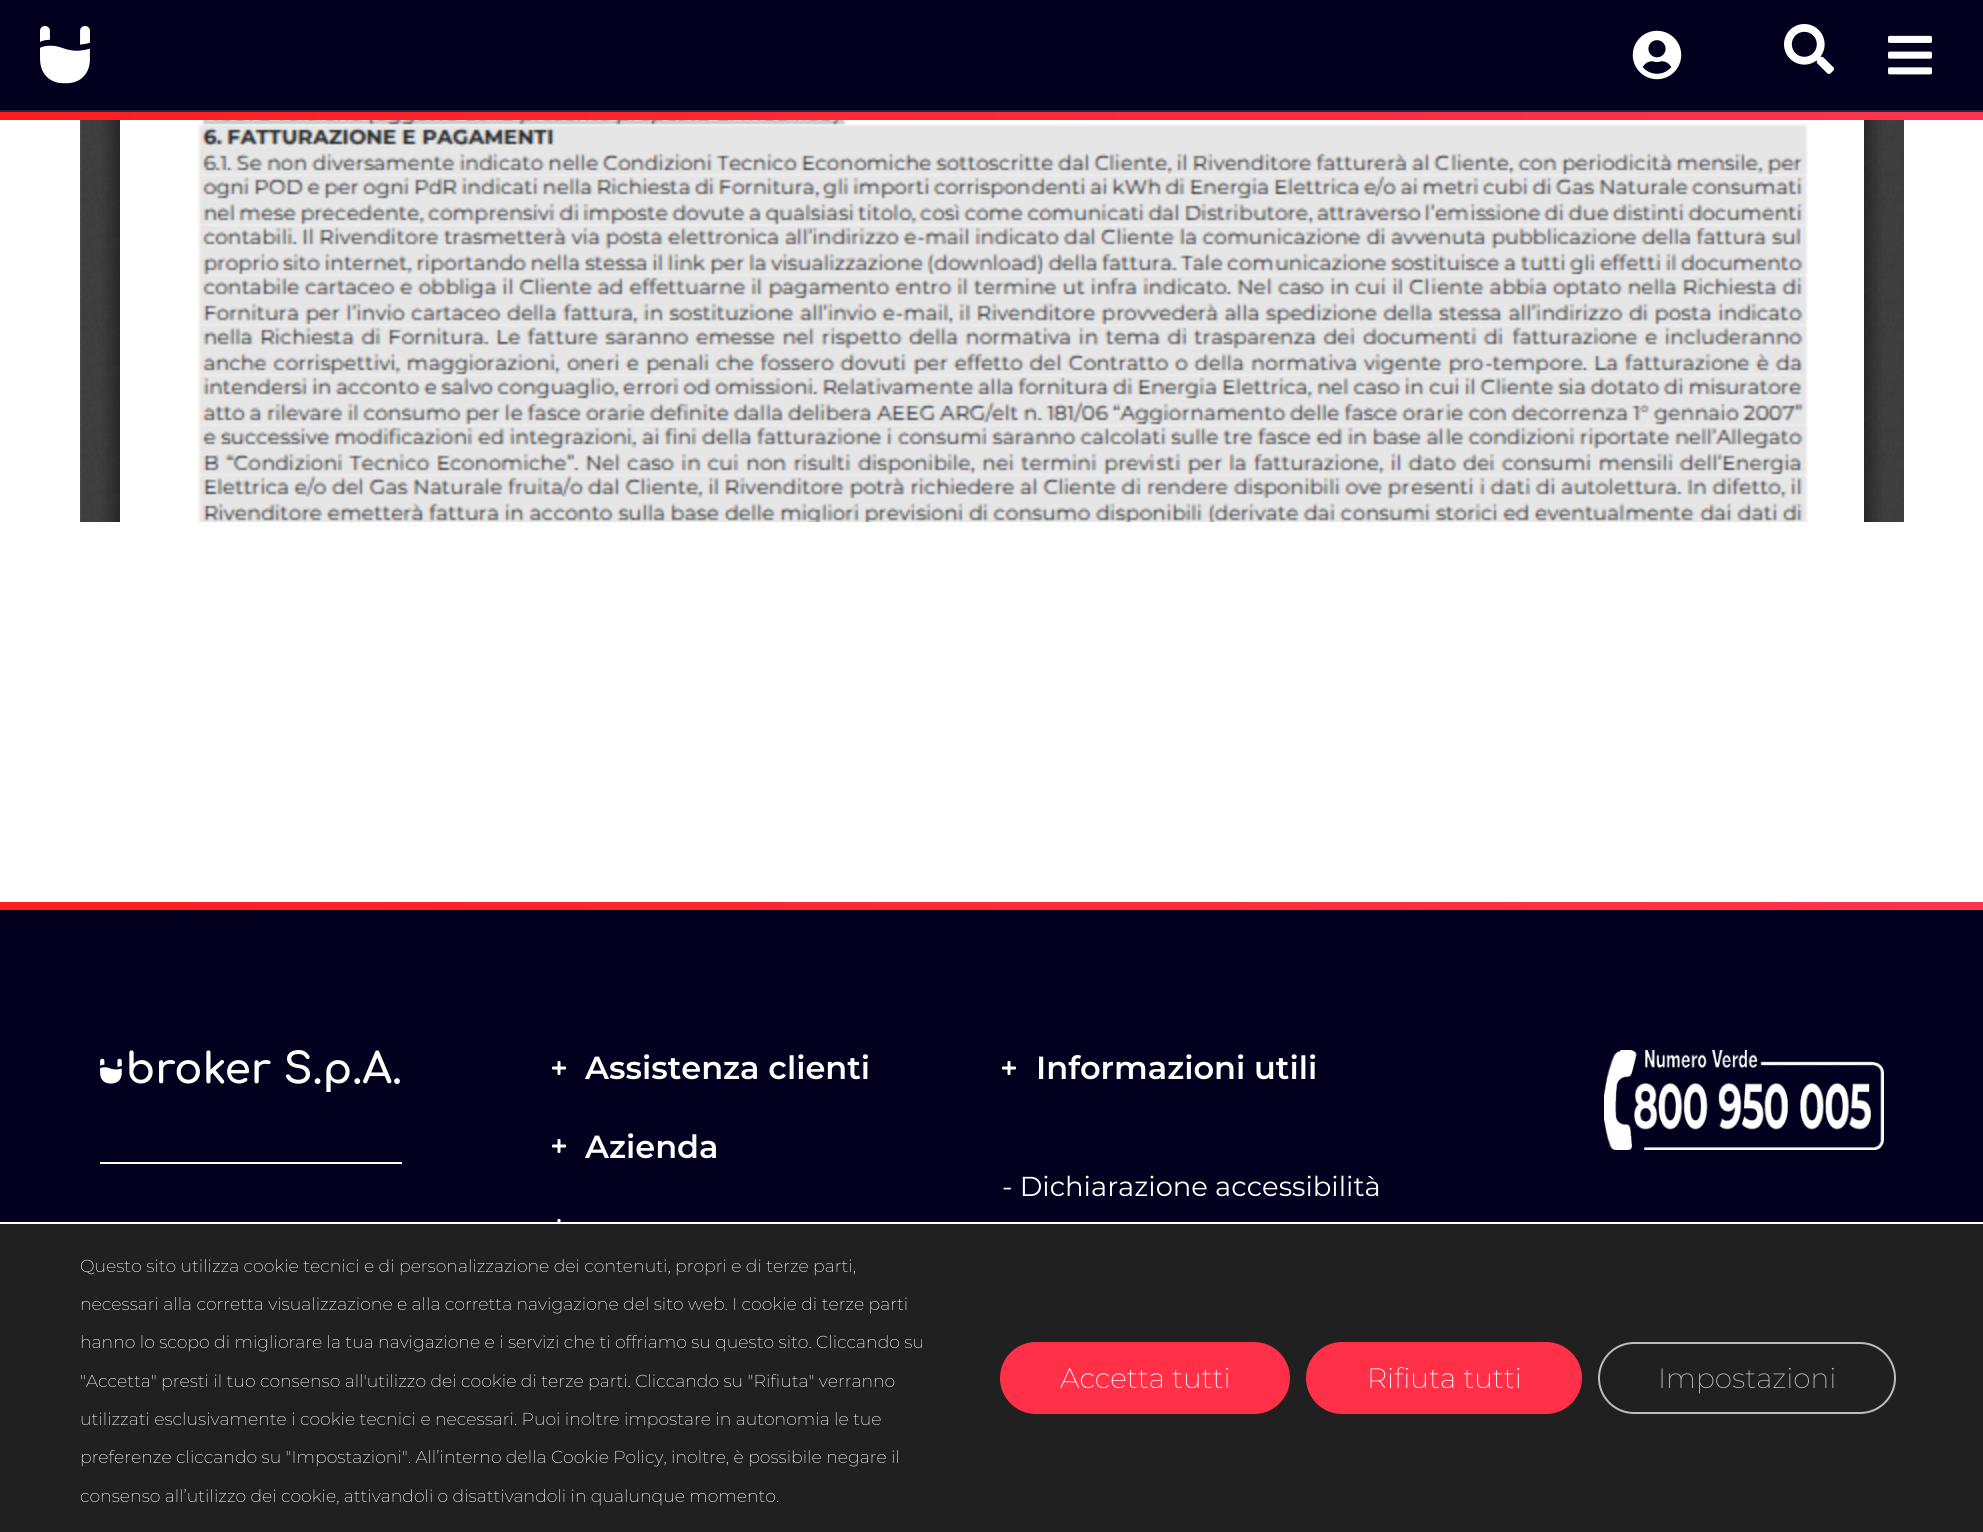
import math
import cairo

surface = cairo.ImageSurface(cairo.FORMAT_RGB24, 1983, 1532)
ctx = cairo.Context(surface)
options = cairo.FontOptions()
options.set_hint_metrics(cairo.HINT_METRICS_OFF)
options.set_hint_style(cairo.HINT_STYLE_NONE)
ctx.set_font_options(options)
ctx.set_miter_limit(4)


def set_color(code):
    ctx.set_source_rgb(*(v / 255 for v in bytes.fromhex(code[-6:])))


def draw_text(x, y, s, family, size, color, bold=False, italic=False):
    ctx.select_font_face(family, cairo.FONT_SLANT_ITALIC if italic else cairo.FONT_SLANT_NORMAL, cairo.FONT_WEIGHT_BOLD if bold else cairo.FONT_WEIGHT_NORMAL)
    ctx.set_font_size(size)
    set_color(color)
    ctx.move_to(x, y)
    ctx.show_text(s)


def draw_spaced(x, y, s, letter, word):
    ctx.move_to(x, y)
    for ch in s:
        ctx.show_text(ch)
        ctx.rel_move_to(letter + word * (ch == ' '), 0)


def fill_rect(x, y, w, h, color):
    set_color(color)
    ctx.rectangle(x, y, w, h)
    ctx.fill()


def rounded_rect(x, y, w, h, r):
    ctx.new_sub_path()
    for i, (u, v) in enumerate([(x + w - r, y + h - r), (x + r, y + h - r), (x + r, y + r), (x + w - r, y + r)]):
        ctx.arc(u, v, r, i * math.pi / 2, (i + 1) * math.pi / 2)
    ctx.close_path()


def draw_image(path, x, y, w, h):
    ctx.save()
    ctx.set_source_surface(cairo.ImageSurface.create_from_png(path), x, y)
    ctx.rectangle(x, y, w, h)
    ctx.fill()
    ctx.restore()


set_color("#ffffff")
ctx.paint()
fill_rect(0, 0, 1983, 110, "#02001e")
fill_rect(0, 110, 1983, 2, "#25243e")
draw_image("assets/img1.png", 40, 26, 50, 58)
draw_image("assets/img2.png", 1632, 30, 50, 50)
draw_image("assets/img3.png", 1784, 24, 50, 50)
draw_image("assets/img4.png", 1888, 35, 44, 40)
gradient = cairo.LinearGradient(0, 116, 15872, 116)
gradient.add_color_stop_rgba(0, 1, 0.118, 0.118, 1)
gradient.add_color_stop_rgba(0.11, 1, 0.192, 0.286, 1)
gradient.add_color_stop_rgba(0.22, 1, 0.259, 0.439, 1)
gradient.add_color_stop_rgba(0.33, 0.573, 0.153, 0.463, 1)
gradient.add_color_stop_rgba(0.44, 0.227, 0.071, 0.478, 1)
gradient.add_color_stop_rgba(0.56, 0.227, 0.071, 0.478, 1)
gradient.add_color_stop_rgba(0.67, 0.573, 0.153, 0.463, 1)
gradient.add_color_stop_rgba(0.78, 1, 0.259, 0.439, 1)
gradient.add_color_stop_rgba(0.89, 1, 0.192, 0.286, 1)
gradient.add_color_stop_rgba(1, 1, 0.118, 0.118, 1)
ctx.set_source(gradient)
ctx.rectangle(0, 112, 1983, 4)
ctx.fill()
gradient = cairo.LinearGradient(0, 120, 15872, 120)
gradient.add_color_stop_rgba(0, 1, 0.118, 0.118, 1)
gradient.add_color_stop_rgba(0.11, 1, 0.192, 0.286, 1)
gradient.add_color_stop_rgba(0.22, 1, 0.259, 0.439, 1)
gradient.add_color_stop_rgba(0.33, 0.573, 0.153, 0.463, 1)
gradient.add_color_stop_rgba(0.44, 0.227, 0.071, 0.478, 1)
gradient.add_color_stop_rgba(0.56, 0.227, 0.071, 0.478, 1)
gradient.add_color_stop_rgba(0.67, 0.573, 0.153, 0.463, 1)
gradient.add_color_stop_rgba(0.78, 1, 0.259, 0.439, 1)
gradient.add_color_stop_rgba(0.89, 1, 0.192, 0.286, 1)
gradient.add_color_stop_rgba(1, 1, 0.118, 0.118, 1)
ctx.set_source(gradient)
ctx.rectangle(0, 116, 1983, 4)
ctx.fill()
draw_image("assets/img5.png", 80, 120, 1824, 402)
gradient = cairo.LinearGradient(0, 910, 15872, 910)
gradient.add_color_stop_rgba(0, 1, 0.118, 0.118, 1)
gradient.add_color_stop_rgba(0.11, 1, 0.192, 0.286, 1)
gradient.add_color_stop_rgba(0.22, 1, 0.259, 0.439, 1)
gradient.add_color_stop_rgba(0.33, 0.573, 0.153, 0.463, 1)
gradient.add_color_stop_rgba(0.44, 0.227, 0.071, 0.478, 1)
gradient.add_color_stop_rgba(0.56, 0.227, 0.071, 0.478, 1)
gradient.add_color_stop_rgba(0.67, 0.573, 0.153, 0.463, 1)
gradient.add_color_stop_rgba(0.78, 1, 0.259, 0.439, 1)
gradient.add_color_stop_rgba(0.89, 1, 0.192, 0.286, 1)
gradient.add_color_stop_rgba(1, 1, 0.118, 0.118, 1)
ctx.set_source(gradient)
ctx.rectangle(0, 902, 1983, 8)
ctx.fill()
fill_rect(0, 910, 1983, 312, "#02001e")
draw_image("assets/img6.png", 100, 1050, 300, 42)
fill_rect(100, 1162, 302, 2, "#ffffff")
draw_image("assets/img7.png", 552, 1061, 14, 14)
draw_text(585, 1079, "Assistenza clienti", "Montserrat SemiBold", 32, "#ffffff")
draw_image("assets/img7.png", 552, 1139, 14, 14)
draw_text(585, 1158, "Azienda", "Montserrat SemiBold", 32, "#ffffff")
draw_image("assets/img8.png", 557, 1219, 4, 3)
draw_image("assets/img7.png", 1002, 1061, 14, 14)
draw_text(1036, 1079, "Informazioni utili", "Montserrat SemiBold", 32, "#ffffff")
draw_text(1002, 1196, "- Dichiarazione accessibilità", "Montserrat", 27.4, "#ffffff")
draw_image("assets/img9.png", 1604, 1050, 280, 100)
fill_rect(0, 1224, 1983, 308, "#202020")
draw_text(80, 1272, "Questo sito utilizza cookie tecnici e di personalizzazione dei contenuti, propri e di terze parti,", "Montserrat ExtraLight", 17.3, "#ffffff")
draw_text(80, 1310, "necessari alla corretta visualizzazione e alla corretta navigazione del sito web. I cookie di terze parti", "Montserrat ExtraLight", 17.3, "#ffffff")
draw_text(80, 1348, "hanno lo scopo di migliorare la tua navigazione e i servizi che ti offriamo su questo sito. Cliccando su", "Montserrat ExtraLight", 17.3, "#ffffff")
draw_text(80, 1387, "\"Accetta\" presti il tuo consenso all'utilizzo dei cookie di terze parti. Cliccando su \"Rifiuta\" verranno", "Montserrat ExtraLight", 17.3, "#ffffff")
draw_text(80, 1425, "utilizzati esclusivamente i cookie tecnici e necessari. Puoi inoltre impostare in autonomia le tue", "Montserrat ExtraLight", 17.3, "#ffffff")
draw_text(80, 1463, "preferenze cliccando su \"Impostazioni\". All’interno della Cookie Policy, inoltre, è possibile negare il", "Montserrat ExtraLight", 17.3, "#ffffff")
draw_spaced(80, 1502, "consenso all’utilizzo dei cookie, attivandoli o disattivandoli in qualunque momento.", 0, -0.1)
set_color("#ff3047")
rounded_rect(1000, 1342, 290, 72, 36)
ctx.fill()
draw_text(1060, 1388, "Accetta tutti", "Montserrat ExtraLight", 28, "#ffffff")
set_color("#ff3047")
rounded_rect(1306, 1342, 276, 72, 36)
ctx.fill()
draw_text(1367, 1388, "Rifiuta tutti", "Montserrat ExtraLight", 28, "#ffffff")
rounded_rect(1599, 1343, 296, 70, 35)
set_color("#bcbcbc")
ctx.stroke()
draw_text(1658, 1388, "Impostazioni", "Montserrat ExtraLight", 28, "#bcbcbc")
surface.write_to_png("output.png")
